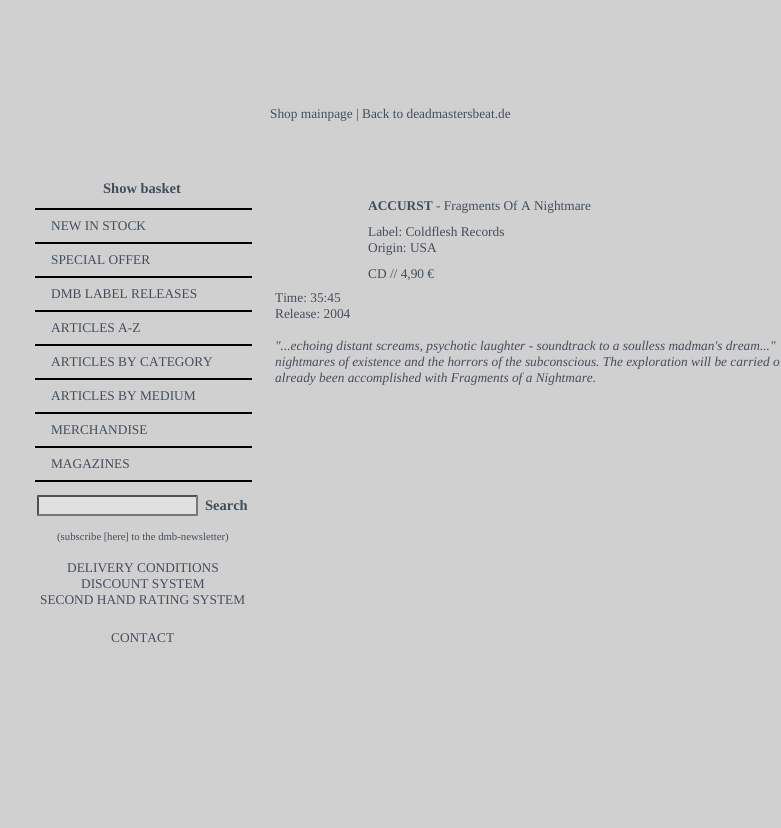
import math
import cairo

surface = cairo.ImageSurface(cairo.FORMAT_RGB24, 781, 828)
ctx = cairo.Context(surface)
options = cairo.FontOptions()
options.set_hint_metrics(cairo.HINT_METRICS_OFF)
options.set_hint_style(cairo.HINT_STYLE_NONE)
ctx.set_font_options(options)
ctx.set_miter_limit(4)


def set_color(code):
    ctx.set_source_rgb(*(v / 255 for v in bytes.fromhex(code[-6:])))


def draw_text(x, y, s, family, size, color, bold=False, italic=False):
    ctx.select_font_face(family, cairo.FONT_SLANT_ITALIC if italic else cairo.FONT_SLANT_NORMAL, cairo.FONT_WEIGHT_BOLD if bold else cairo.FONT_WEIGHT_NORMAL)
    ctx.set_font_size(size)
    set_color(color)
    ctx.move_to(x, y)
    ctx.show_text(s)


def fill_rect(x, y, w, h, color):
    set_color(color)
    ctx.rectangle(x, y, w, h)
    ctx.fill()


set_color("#d0d0d0")
ctx.paint()
draw_text(270, 118, "Shop mainpage", "Liberation Serif", 13.35, "#424d5c")
draw_text(356, 118, "|", "Liberation Serif", 13.35, "#424d5c")
draw_text(362, 118, "Back to deadmastersbeat.de", "Liberation Serif", 13.35, "#424d5c")
draw_text(103, 193, "Show basket", "Liberation Serif", 14.5, "#424d5c", bold=True)
fill_rect(35, 208, 217, 2, "#000000")
draw_text(51, 230, "NEW IN STOCK", "Liberation Serif", 13.35, "#424d5c")
fill_rect(35, 242, 217, 2, "#000000")
draw_text(51, 264, "SPECIAL OFFER", "Liberation Serif", 13.35, "#424d5c")
fill_rect(35, 276, 217, 2, "#000000")
draw_text(51, 298, "DMB LABEL RELEASES", "Liberation Serif", 13.35, "#424d5c")
fill_rect(35, 310, 217, 2, "#000000")
draw_text(51, 332, "ARTICLES A-Z", "Liberation Serif", 13.35, "#424d5c")
fill_rect(35, 344, 217, 2, "#000000")
draw_text(51, 366, "ARTICLES BY CATEGORY", "Liberation Serif", 13.35, "#424d5c")
fill_rect(35, 378, 217, 2, "#000000")
draw_text(51, 400, "ARTICLES BY MEDIUM", "Liberation Serif", 13.35, "#424d5c")
fill_rect(35, 412, 217, 2, "#000000")
draw_text(51, 434, "MERCHANDISE", "Liberation Serif", 13.35, "#424d5c")
fill_rect(35, 446, 217, 2, "#000000")
draw_text(51, 468, "MAGAZINES", "Liberation Serif", 13.35, "#424d5c")
fill_rect(35, 480, 217, 2, "#000000")
fill_rect(37, 495, 161, 21, "#e0e0e0")
set_color("#4f4f4f")
ctx.new_path()
ctx.move_to(37, 495)
ctx.line_to(198, 495)
ctx.line_to(196, 497)
ctx.line_to(39, 497)
ctx.close_path()
ctx.fill()
set_color("#767676")
ctx.new_path()
ctx.move_to(198, 495)
ctx.line_to(198, 516)
ctx.line_to(196, 514)
ctx.line_to(196, 497)
ctx.close_path()
ctx.fill()
ctx.new_path()
ctx.move_to(198, 516)
ctx.line_to(37, 516)
ctx.line_to(39, 514)
ctx.line_to(196, 514)
ctx.close_path()
ctx.fill()
set_color("#4f4f4f")
ctx.new_path()
ctx.move_to(37, 516)
ctx.line_to(37, 495)
ctx.line_to(39, 497)
ctx.line_to(39, 514)
ctx.close_path()
ctx.fill()
draw_text(205, 510, "Search", "Liberation Serif", 14.5, "#424d5c", bold=True)
draw_text(57, 540, "(subscribe [", "Liberation Serif", 10.75, "#424d5c")
draw_text(107, 540, "here", "Liberation Serif", 10.75, "#424d5c")
draw_text(125, 540, "] to the dmb-newsletter)", "Liberation Serif", 10.75, "#424d5c")
draw_text(67, 572, "DELIVERY CONDITIONS", "Liberation Serif", 13.35, "#424d5c")
draw_text(81, 588, "DISCOUNT SYSTEM", "Liberation Serif", 13.35, "#424d5c")
draw_text(40, 604, "SECOND HAND RATING SYSTEM", "Liberation Serif", 13.35, "#424d5c")
draw_text(111, 642, "CONTACT", "Liberation Serif", 13.35, "#424d5c")
draw_text(368, 210, "ACCURST", "Liberation Serif", 13.35, "#424d5c", bold=True)
draw_text(436, 210, "- Fragments Of A Nightmare", "Liberation Serif", 13.35, "#424d5c")
draw_text(368, 236, "Label: Coldflesh Records", "Liberation Serif", 13.35, "#424d5c")
draw_text(368, 252, "Origin: USA", "Liberation Serif", 13.35, "#424d5c")
draw_text(368, 278, "CD // 4,90 €", "Liberation Serif", 13.35, "#424d5c")
draw_text(275, 302, "Time: 35:45", "Liberation Serif", 13.35, "#424d5c")
draw_text(275, 318, "Release: 2004", "Liberation Serif", 13.35, "#424d5c")
draw_text(275, 350, "\"...echoing distant screams, psychotic laughter - soundtrack to a soulless madman's dream...\"", "Liberation Serif", 13.35, "#424d5c", italic=True)
draw_text(275, 366, "nightmares of existence and the horrors of the subconscious. The exploration will be carried o", "Liberation Serif", 13.35, "#424d5c", italic=True)
draw_text(275, 382, "already been accomplished with Fragments of a Nightmare.", "Liberation Serif", 13.35, "#424d5c", italic=True)
surface.write_to_png("output.png")
